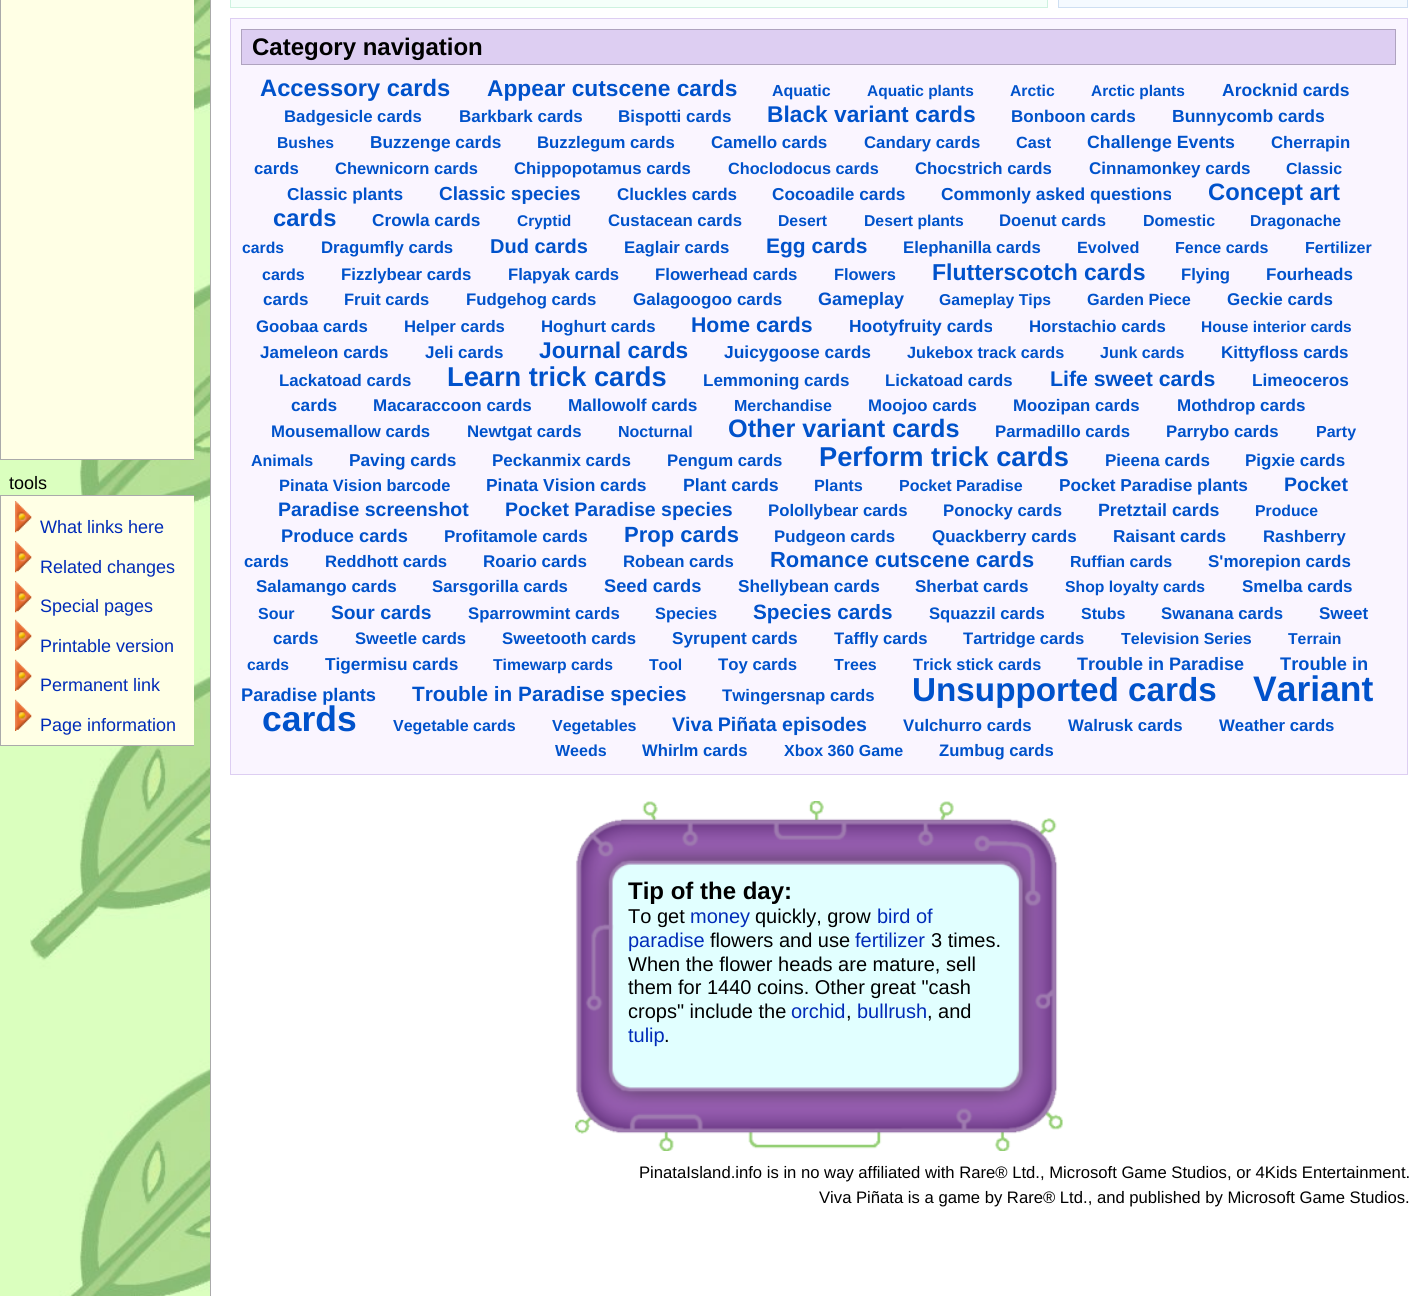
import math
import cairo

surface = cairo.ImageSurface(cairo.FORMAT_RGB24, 1426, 1296)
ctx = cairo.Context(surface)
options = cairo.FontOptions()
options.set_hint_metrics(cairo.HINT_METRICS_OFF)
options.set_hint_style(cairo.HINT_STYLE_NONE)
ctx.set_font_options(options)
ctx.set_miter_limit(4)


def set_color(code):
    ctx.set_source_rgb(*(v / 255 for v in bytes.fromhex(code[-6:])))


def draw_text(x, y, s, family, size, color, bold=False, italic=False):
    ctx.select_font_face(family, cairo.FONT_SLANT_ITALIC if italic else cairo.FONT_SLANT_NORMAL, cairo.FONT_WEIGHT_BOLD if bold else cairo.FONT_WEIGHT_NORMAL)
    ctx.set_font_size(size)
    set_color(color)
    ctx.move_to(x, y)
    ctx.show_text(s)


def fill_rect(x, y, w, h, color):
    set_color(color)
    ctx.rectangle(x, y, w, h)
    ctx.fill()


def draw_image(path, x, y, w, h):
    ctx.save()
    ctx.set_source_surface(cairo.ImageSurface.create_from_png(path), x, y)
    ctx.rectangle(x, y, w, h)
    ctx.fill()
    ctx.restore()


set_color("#daffbe")
ctx.paint()
draw_image("assets/img1.png", 30, 0, 180, 1296)
fill_rect(1, 0, 193, 459, "#ffffe5")
ctx.save()
ctx.rectangle(0, 0, 194, 460)
ctx.clip()
ctx.rectangle(0.5, -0.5, 199, 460)
set_color("#aaaaaa")
ctx.set_line_width(1)
ctx.stroke()
ctx.restore()
draw_text(9, 489, "tools", "Liberation Sans", 18, "#000000")
fill_rect(1, 496, 193, 249, "#ffffe5")
ctx.save()
ctx.rectangle(0, 470, 194, 276)
ctx.clip()
ctx.rectangle(0.5, 495.5, 199, 250)
set_color("#aaaaaa")
ctx.set_line_width(1)
ctx.stroke()
ctx.restore()
draw_image("assets/img2.png", 15, 501, 17, 32)
draw_text(40, 533, "What links here", "Liberation Sans", 18, "#002bb8")
draw_image("assets/img2.png", 15, 541, 17, 32)
draw_text(40, 573, "Related changes", "Liberation Sans", 18, "#002bb8")
draw_image("assets/img2.png", 15, 581, 17, 32)
draw_text(40, 612, "Special pages", "Liberation Sans", 18, "#002bb8")
draw_image("assets/img3.png", 15, 619, 17, 32)
draw_text(40, 652, "Printable version", "Liberation Sans", 18, "#002bb8")
draw_image("assets/img3.png", 15, 659, 17, 32)
draw_text(40, 691, "Permanent link", "Liberation Sans", 18, "#002bb8")
draw_image("assets/img3.png", 15, 699, 17, 32)
draw_text(40, 731, "Page information", "Liberation Sans", 18, "#002bb8")
fill_rect(211, 0, 1215, 1296, "#ffffff")
fill_rect(210, 0, 1, 1296, "#aaaaaa")
set_color("#f5fffa")
ctx.rectangle(230.5, -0.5, 817, 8)
ctx.fill_preserve()
set_color("#cef2e0")
ctx.set_line_width(1)
ctx.stroke()
set_color("#f5faff")
ctx.rectangle(1058.5, -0.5, 349, 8)
ctx.fill_preserve()
set_color("#cedff2")
ctx.stroke()
set_color("#faf5ff")
ctx.rectangle(230.5, 18.5, 1177, 756)
ctx.fill_preserve()
set_color("#ddcef2")
ctx.stroke()
ctx.rectangle(241.5, 29.5, 1154, 35)
ctx.fill_preserve()
set_color("#afa3bf")
ctx.stroke()
draw_text(252, 55, "Category navigation", "Liberation Sans", 24, "#000000", bold=True)
draw_text(260, 96, "Accessory cards", "Liberation Sans", 23.75, "#0052cb", bold=True)
draw_text(487, 96, "Appear cutscene cards", "Liberation Sans", 22.75, "#0052cb", bold=True)
draw_text(772, 96, "Aquatic", "Liberation Sans", 16, "#0052cb", bold=True)
draw_text(867, 96, "Aquatic plants", "Liberation Sans", 15.5, "#0052cb", bold=True)
draw_text(1010, 96, "Arctic", "Liberation Sans", 15.75, "#0052cb", bold=True)
draw_text(1091, 96, "Arctic plants", "Liberation Sans", 15.5, "#0052cb", bold=True)
draw_text(1222, 96, "Arocknid cards", "Liberation Sans", 17.5, "#0052cb", bold=True)
draw_text(284, 122, "Badgesicle cards", "Liberation Sans", 16.75, "#0052cb", bold=True)
draw_text(459, 122, "Barkbark cards", "Liberation Sans", 17, "#0052cb", bold=True)
draw_text(618, 122, "Bispotti cards", "Liberation Sans", 17, "#0052cb", bold=True)
draw_text(767, 122, "Black variant cards", "Liberation Sans", 22.75, "#0052cb", bold=True)
draw_text(1011, 122, "Bonboon cards", "Liberation Sans", 17, "#0052cb", bold=True)
draw_text(1172, 122, "Bunnycomb cards", "Liberation Sans", 17.5, "#0052cb", bold=True)
draw_text(277, 148, "Bushes", "Liberation Sans", 15.75, "#0052cb", bold=True)
draw_text(370, 148, "Buzzenge cards", "Liberation Sans", 17.25, "#0052cb", bold=True)
draw_text(537, 148, "Buzzlegum cards", "Liberation Sans", 16.75, "#0052cb", bold=True)
draw_text(711, 148, "Camello cards", "Liberation Sans", 17, "#0052cb", bold=True)
draw_text(864, 148, "Candary cards", "Liberation Sans", 16.75, "#0052cb", bold=True)
draw_text(1016, 148, "Cast", "Liberation Sans", 16.25, "#0052cb", bold=True)
draw_text(1087, 148, "Challenge Events", "Liberation Sans", 17.75, "#0052cb", bold=True)
draw_text(1271, 148, "Cherrapin", "Liberation Sans", 16.75, "#0052cb", bold=True)
draw_text(254, 174, "cards", "Liberation Sans", 16.75, "#0052cb", bold=True)
draw_text(335, 174, "Chewnicorn cards", "Liberation Sans", 16.5, "#0052cb", bold=True)
draw_text(514, 174, "Chippopotamus cards", "Liberation Sans", 16.75, "#0052cb", bold=True)
draw_text(728, 174, "Choclodocus cards", "Liberation Sans", 16.25, "#0052cb", bold=True)
draw_text(915, 174, "Chocstrich cards", "Liberation Sans", 16.75, "#0052cb", bold=True)
draw_text(1089, 174, "Cinnamonkey cards", "Liberation Sans", 17, "#0052cb", bold=True)
draw_text(1286, 174, "Classic", "Liberation Sans", 16, "#0052cb", bold=True)
draw_text(287, 200, "Classic plants", "Liberation Sans", 17.25, "#0052cb", bold=True)
draw_text(439, 200, "Classic species", "Liberation Sans", 19, "#0052cb", bold=True)
draw_text(617, 200, "Cluckles cards", "Liberation Sans", 17, "#0052cb", bold=True)
draw_text(772, 200, "Cocoadile cards", "Liberation Sans", 17.25, "#0052cb", bold=True)
draw_text(941, 200, "Commonly asked questions", "Liberation Sans", 17.4, "#0052cb", bold=True)
draw_text(1208, 200, "Concept art", "Liberation Sans", 23.75, "#0052cb", bold=True)
draw_text(273, 226, "cards", "Liberation Sans", 23.75, "#0052cb", bold=True)
draw_text(372, 226, "Crowla cards", "Liberation Sans", 17.25, "#0052cb", bold=True)
draw_text(517, 226, "Cryptid", "Liberation Sans", 15.5, "#0052cb", bold=True)
draw_text(608, 226, "Custacean cards", "Liberation Sans", 16.75, "#0052cb", bold=True)
draw_text(778, 226, "Desert", "Liberation Sans", 15.75, "#0052cb", bold=True)
draw_text(864, 226, "Desert plants", "Liberation Sans", 15.75, "#0052cb", bold=True)
draw_text(999, 226, "Doenut cards", "Liberation Sans", 16.75, "#0052cb", bold=True)
draw_text(1143, 226, "Domestic", "Liberation Sans", 16, "#0052cb", bold=True)
draw_text(1250, 226, "Dragonache", "Liberation Sans", 15.75, "#0052cb", bold=True)
draw_text(242, 253, "cards", "Liberation Sans", 15.75, "#0052cb", bold=True)
draw_text(321, 253, "Dragumfly cards", "Liberation Sans", 16.75, "#0052cb", bold=True)
draw_text(490, 253, "Dud cards", "Liberation Sans", 20, "#0052cb", bold=True)
draw_text(624, 253, "Eaglair cards", "Liberation Sans", 16.75, "#0052cb", bold=True)
draw_text(766, 253, "Egg cards", "Liberation Sans", 21, "#0052cb", bold=True)
draw_text(903, 253, "Elephanilla cards", "Liberation Sans", 16.75, "#0052cb", bold=True)
draw_text(1077, 253, "Evolved", "Liberation Sans", 16.25, "#0052cb", bold=True)
draw_text(1175, 253, "Fence cards", "Liberation Sans", 16, "#0052cb", bold=True)
draw_text(1305, 253, "Fertilizer", "Liberation Sans", 16, "#0052cb", bold=True)
draw_text(262, 280, "cards", "Liberation Sans", 16, "#0052cb", bold=True)
draw_text(341, 280, "Fizzlybear cards", "Liberation Sans", 16.75, "#0052cb", bold=True)
draw_text(508, 280, "Flapyak cards", "Liberation Sans", 16.65, "#0052cb", bold=True)
draw_text(655, 280, "Flowerhead cards", "Liberation Sans", 16.75, "#0052cb", bold=True)
draw_text(834, 280, "Flowers", "Liberation Sans", 16.4, "#0052cb", bold=True)
draw_text(932, 280, "Flutterscotch cards", "Liberation Sans", 23, "#0052cb", bold=True)
draw_text(1181, 280, "Flying", "Liberation Sans", 16.65, "#0052cb", bold=True)
draw_text(1266, 280, "Fourheads", "Liberation Sans", 17, "#0052cb", bold=True)
draw_text(263, 305, "cards", "Liberation Sans", 17, "#0052cb", bold=True)
draw_text(344, 305, "Fruit cards", "Liberation Sans", 16.5, "#0052cb", bold=True)
draw_text(466, 305, "Fudgehog cards", "Liberation Sans", 16.75, "#0052cb", bold=True)
draw_text(633, 305, "Galagoogoo cards", "Liberation Sans", 17, "#0052cb", bold=True)
draw_text(818, 305, "Gameplay", "Liberation Sans", 18, "#0052cb", bold=True)
draw_text(939, 305, "Gameplay Tips", "Liberation Sans", 15.75, "#0052cb", bold=True)
draw_text(1087, 305, "Garden Piece", "Liberation Sans", 16.25, "#0052cb", bold=True)
draw_text(1227, 305, "Geckie cards", "Liberation Sans", 17, "#0052cb", bold=True)
draw_text(256, 332, "Goobaa cards", "Liberation Sans", 16.75, "#0052cb", bold=True)
draw_text(404, 332, "Helper cards", "Liberation Sans", 16.65, "#0052cb", bold=True)
draw_text(541, 332, "Hoghurt cards", "Liberation Sans", 16.75, "#0052cb", bold=True)
draw_text(691, 332, "Home cards", "Liberation Sans", 21.25, "#0052cb", bold=True)
draw_text(849, 332, "Hootyfruity cards", "Liberation Sans", 17.4, "#0052cb", bold=True)
draw_text(1029, 332, "Horstachio cards", "Liberation Sans", 16.75, "#0052cb", bold=True)
draw_text(1201, 332, "House interior cards", "Liberation Sans", 15.5, "#0052cb", bold=True)
draw_text(260, 358, "Jameleon cards", "Liberation Sans", 17, "#0052cb", bold=True)
draw_text(425, 358, "Jeli cards", "Liberation Sans", 17, "#0052cb", bold=True)
draw_text(539, 358, "Journal cards", "Liberation Sans", 22.75, "#0052cb", bold=True)
draw_text(724, 358, "Juicygoose cards", "Liberation Sans", 17.4, "#0052cb", bold=True)
draw_text(907, 358, "Jukebox track cards", "Liberation Sans", 16.25, "#0052cb", bold=True)
draw_text(1100, 358, "Junk cards", "Liberation Sans", 16, "#0052cb", bold=True)
draw_text(1221, 358, "Kittyfloss cards", "Liberation Sans", 17, "#0052cb", bold=True)
draw_text(279, 386, "Lackatoad cards", "Liberation Sans", 16.75, "#0052cb", bold=True)
draw_text(447, 386, "Learn trick cards", "Liberation Sans", 27.25, "#0052cb", bold=True)
draw_text(703, 386, "Lemmoning cards", "Liberation Sans", 17, "#0052cb", bold=True)
draw_text(885, 386, "Lickatoad cards", "Liberation Sans", 16.75, "#0052cb", bold=True)
draw_text(1050, 386, "Life sweet cards", "Liberation Sans", 21.25, "#0052cb", bold=True)
draw_text(1252, 386, "Limeoceros", "Liberation Sans", 17.25, "#0052cb", bold=True)
draw_text(291, 411, "cards", "Liberation Sans", 17.25, "#0052cb", bold=True)
draw_text(373, 411, "Macaraccoon cards", "Liberation Sans", 17, "#0052cb", bold=True)
draw_text(568, 411, "Mallowolf cards", "Liberation Sans", 17.25, "#0052cb", bold=True)
draw_text(734, 411, "Merchandise", "Liberation Sans", 16, "#0052cb", bold=True)
draw_text(868, 411, "Moojoo cards", "Liberation Sans", 16.75, "#0052cb", bold=True)
draw_text(1013, 411, "Moozipan cards", "Liberation Sans", 16.75, "#0052cb", bold=True)
draw_text(1177, 411, "Mothdrop cards", "Liberation Sans", 17, "#0052cb", bold=True)
draw_text(271, 437, "Mousemallow cards", "Liberation Sans", 16.75, "#0052cb", bold=True)
draw_text(467, 437, "Newtgat cards", "Liberation Sans", 16.75, "#0052cb", bold=True)
draw_text(618, 437, "Nocturnal", "Liberation Sans", 16, "#0052cb", bold=True)
draw_text(728, 437, "Other variant cards", "Liberation Sans", 25.25, "#0052cb", bold=True)
draw_text(995, 437, "Parmadillo cards", "Liberation Sans", 16.75, "#0052cb", bold=True)
draw_text(1166, 437, "Parrybo cards", "Liberation Sans", 16.75, "#0052cb", bold=True)
draw_text(1316, 437, "Party", "Liberation Sans", 16, "#0052cb", bold=True)
draw_text(251, 466, "Animals", "Liberation Sans", 16, "#0052cb", bold=True)
draw_text(349, 466, "Paving cards", "Liberation Sans", 17.25, "#0052cb", bold=True)
draw_text(492, 466, "Peckanmix cards", "Liberation Sans", 17, "#0052cb", bold=True)
draw_text(667, 466, "Pengum cards", "Liberation Sans", 16.75, "#0052cb", bold=True)
draw_text(819, 466, "Perform trick cards", "Liberation Sans", 27.25, "#0052cb", bold=True)
draw_text(1105, 466, "Pieena cards", "Liberation Sans", 17, "#0052cb", bold=True)
draw_text(1245, 466, "Pigxie cards", "Liberation Sans", 17, "#0052cb", bold=True)
draw_text(279, 491, "Pinata Vision barcode", "Liberation Sans", 16.4, "#0052cb", bold=True)
draw_text(486, 491, "Pinata Vision cards", "Liberation Sans", 17.4, "#0052cb", bold=True)
draw_text(683, 491, "Plant cards", "Liberation Sans", 17.75, "#0052cb", bold=True)
draw_text(814, 491, "Plants", "Liberation Sans", 16.25, "#0052cb", bold=True)
draw_text(899, 491, "Pocket Paradise", "Liberation Sans", 16, "#0052cb", bold=True)
draw_text(1059, 491, "Pocket Paradise plants", "Liberation Sans", 17.25, "#0052cb", bold=True)
draw_text(1284, 491, "Pocket", "Liberation Sans", 19.5, "#0052cb", bold=True)
draw_text(278, 516, "Paradise screenshot", "Liberation Sans", 19.5, "#0052cb", bold=True)
draw_text(505, 516, "Pocket Paradise species", "Liberation Sans", 19.5, "#0052cb", bold=True)
draw_text(768, 516, "Polollybear cards", "Liberation Sans", 16.75, "#0052cb", bold=True)
draw_text(943, 516, "Ponocky cards", "Liberation Sans", 16.75, "#0052cb", bold=True)
draw_text(1098, 516, "Pretztail cards", "Liberation Sans", 17.75, "#0052cb", bold=True)
draw_text(1255, 516, "Produce", "Liberation Sans", 15.75, "#0052cb", bold=True)
draw_text(281, 542, "Produce cards", "Liberation Sans", 18.25, "#0052cb", bold=True)
draw_text(444, 542, "Profitamole cards", "Liberation Sans", 17, "#0052cb", bold=True)
draw_text(624, 542, "Prop cards", "Liberation Sans", 22, "#0052cb", bold=True)
draw_text(774, 542, "Pudgeon cards", "Liberation Sans", 16.75, "#0052cb", bold=True)
draw_text(932, 542, "Quackberry cards", "Liberation Sans", 17, "#0052cb", bold=True)
draw_text(1113, 542, "Raisant cards", "Liberation Sans", 17.25, "#0052cb", bold=True)
draw_text(1263, 542, "Rashberry", "Liberation Sans", 16.75, "#0052cb", bold=True)
draw_text(244, 567, "cards", "Liberation Sans", 16.75, "#0052cb", bold=True)
draw_text(325, 567, "Reddhott cards", "Liberation Sans", 16.65, "#0052cb", bold=True)
draw_text(483, 567, "Roario cards", "Liberation Sans", 17, "#0052cb", bold=True)
draw_text(623, 567, "Robean cards", "Liberation Sans", 16.75, "#0052cb", bold=True)
draw_text(770, 567, "Romance cutscene cards", "Liberation Sans", 21.9, "#0052cb", bold=True)
draw_text(1070, 567, "Ruffian cards", "Liberation Sans", 16, "#0052cb", bold=True)
draw_text(1208, 567, "S'morepion cards", "Liberation Sans", 17, "#0052cb", bold=True)
draw_text(256, 592, "Salamango cards", "Liberation Sans", 17, "#0052cb", bold=True)
draw_text(432, 592, "Sarsgorilla cards", "Liberation Sans", 16.75, "#0052cb", bold=True)
draw_text(604, 592, "Seed cards", "Liberation Sans", 18.25, "#0052cb", bold=True)
draw_text(738, 592, "Shellybean cards", "Liberation Sans", 17.25, "#0052cb", bold=True)
draw_text(915, 592, "Sherbat cards", "Liberation Sans", 17, "#0052cb", bold=True)
draw_text(1065, 592, "Shop loyalty cards", "Liberation Sans", 15.75, "#0052cb", bold=True)
draw_text(1242, 592, "Smelba cards", "Liberation Sans", 17, "#0052cb", bold=True)
draw_text(258, 619, "Sour", "Liberation Sans", 16, "#0052cb", bold=True)
draw_text(331, 619, "Sour cards", "Liberation Sans", 19.25, "#0052cb", bold=True)
draw_text(468, 619, "Sparrowmint cards", "Liberation Sans", 16.75, "#0052cb", bold=True)
draw_text(655, 619, "Species", "Liberation Sans", 16.4, "#0052cb", bold=True)
draw_text(753, 619, "Species cards", "Liberation Sans", 20.75, "#0052cb", bold=True)
draw_text(929, 619, "Squazzil cards", "Liberation Sans", 16.65, "#0052cb", bold=True)
draw_text(1081, 619, "Stubs", "Liberation Sans", 16, "#0052cb", bold=True)
draw_text(1161, 619, "Swanana cards", "Liberation Sans", 16.75, "#0052cb", bold=True)
draw_text(1319, 619, "Sweet", "Liberation Sans", 17, "#0052cb", bold=True)
draw_text(273, 644, "cards", "Liberation Sans", 17, "#0052cb", bold=True)
draw_text(355, 644, "Sweetle cards", "Liberation Sans", 16.65, "#0052cb", bold=True)
draw_text(502, 644, "Sweetooth cards", "Liberation Sans", 16.75, "#0052cb", bold=True)
draw_text(672, 644, "Syrupent cards", "Liberation Sans", 17.25, "#0052cb", bold=True)
draw_text(834, 644, "Taffly cards", "Liberation Sans", 16.65, "#0052cb", bold=True)
draw_text(963, 644, "Tartridge cards", "Liberation Sans", 16.65, "#0052cb", bold=True)
draw_text(1121, 644, "Television Series", "Liberation Sans", 16, "#0052cb", bold=True)
draw_text(1288, 644, "Terrain", "Liberation Sans", 15.75, "#0052cb", bold=True)
draw_text(247, 670, "cards", "Liberation Sans", 15.75, "#0052cb", bold=True)
draw_text(325, 670, "Tigermisu cards", "Liberation Sans", 17.25, "#0052cb", bold=True)
draw_text(493, 670, "Timewarp cards", "Liberation Sans", 15.75, "#0052cb", bold=True)
draw_text(649, 670, "Tool", "Liberation Sans", 15.75, "#0052cb", bold=True)
draw_text(718, 670, "Toy cards", "Liberation Sans", 16.75, "#0052cb", bold=True)
draw_text(834, 670, "Trees", "Liberation Sans", 16, "#0052cb", bold=True)
draw_text(913, 670, "Trick stick cards", "Liberation Sans", 16.25, "#0052cb", bold=True)
draw_text(1077, 670, "Trouble in Paradise", "Liberation Sans", 18, "#0052cb", bold=True)
draw_text(1280, 670, "Trouble in", "Liberation Sans", 18.25, "#0052cb", bold=True)
draw_text(241, 701, "Paradise plants", "Liberation Sans", 18.25, "#0052cb", bold=True)
draw_text(412, 701, "Trouble in Paradise species", "Liberation Sans", 20.75, "#0052cb", bold=True)
draw_text(722, 701, "Twingersnap cards", "Liberation Sans", 16.75, "#0052cb", bold=True)
draw_text(912, 701, "Unsupported cards", "Liberation Sans", 33.25, "#0052cb", bold=True)
draw_text(1253, 701, "Variant", "Liberation Sans", 35.5, "#0052cb", bold=True)
draw_text(262, 731, "cards", "Liberation Sans", 35.5, "#0052cb", bold=True)
draw_text(393, 731, "Vegetable cards", "Liberation Sans", 16, "#0052cb", bold=True)
draw_text(552, 731, "Vegetables", "Liberation Sans", 16, "#0052cb", bold=True)
draw_text(672, 731, "Viva Piñata episodes", "Liberation Sans", 19.6, "#0052cb", bold=True)
draw_text(903, 731, "Vulchurro cards", "Liberation Sans", 16.75, "#0052cb", bold=True)
draw_text(1068, 731, "Walrusk cards", "Liberation Sans", 16.75, "#0052cb", bold=True)
draw_text(1219, 731, "Weather cards", "Liberation Sans", 16.75, "#0052cb", bold=True)
draw_text(555, 756, "Weeds", "Liberation Sans", 16, "#0052cb", bold=True)
draw_text(642, 756, "Whirlm cards", "Liberation Sans", 16.65, "#0052cb", bold=True)
draw_text(784, 756, "Xbox 360 Game", "Liberation Sans", 16, "#0052cb", bold=True)
draw_text(939, 756, "Zumbug cards", "Liberation Sans", 16.65, "#0052cb", bold=True)
draw_image("assets/img4.png", 575, 801, 488, 350)
draw_text(628, 899, "Tip of the day:", "Liberation Sans", 24, "#000000", bold=True)
draw_text(628, 923, "To get", "Liberation Sans", 20, "#000000")
draw_text(690, 923, "money", "Liberation Sans", 20, "#002bb8")
draw_text(755, 923, "quickly, grow", "Liberation Sans", 20, "#000000")
draw_text(877, 923, "bird of", "Liberation Sans", 20, "#002bb8")
draw_text(628, 947, "paradise", "Liberation Sans", 20, "#002bb8")
draw_text(710, 947, "flowers and use", "Liberation Sans", 20, "#000000")
draw_text(855, 947, "fertilizer", "Liberation Sans", 20, "#002bb8")
draw_text(931, 947, "3 times.", "Liberation Sans", 20, "#000000")
draw_text(628, 971, "When the flower heads are mature, sell", "Liberation Sans", 20, "#000000")
draw_text(628, 994, "them for 1440 coins. Other great \"cash", "Liberation Sans", 20, "#000000")
draw_text(628, 1018, "crops\" include the", "Liberation Sans", 20, "#000000")
draw_text(791, 1018, "orchid", "Liberation Sans", 20, "#002bb8")
draw_text(846, 1018, ",", "Liberation Sans", 20, "#000000")
draw_text(857, 1018, "bullrush", "Liberation Sans", 20, "#002bb8")
draw_text(927, 1018, ", and", "Liberation Sans", 20, "#000000")
draw_text(628, 1042, "tulip", "Liberation Sans", 20, "#002bb8")
draw_text(664, 1042, ".", "Liberation Sans", 20, "#000000")
draw_text(639, 1178, "PinataIsland.info is in no way affiliated with Rare® Ltd., Microsoft Game Studios, or 4Kids Entertainment.", "Liberation Sans", 16.65, "#000000")
draw_text(819, 1203, "Viva Piñata is a game by Rare® Ltd., and published by Microsoft Game Studios.", "Liberation Sans", 16.65, "#000000")
surface.write_to_png("output.png")
